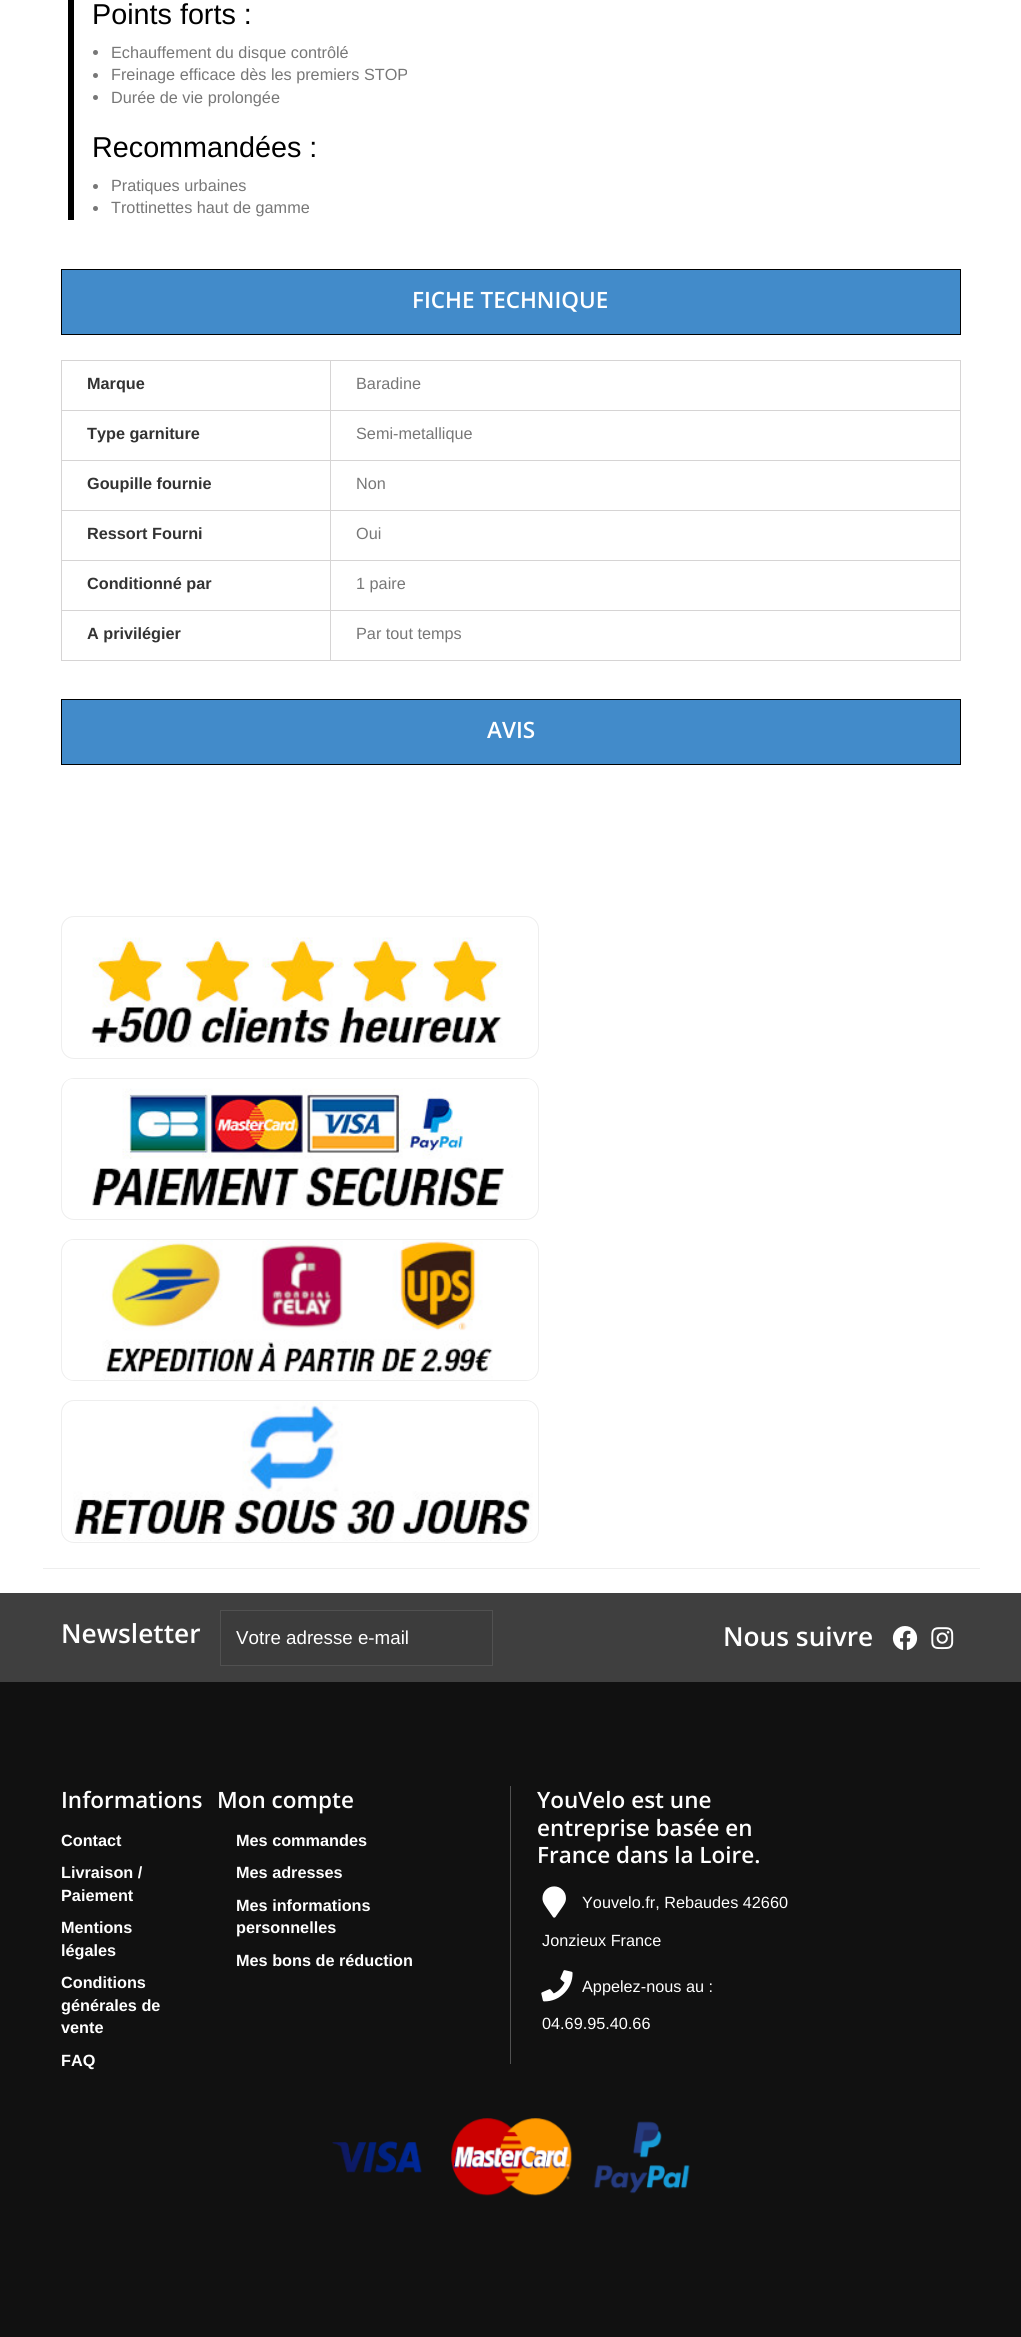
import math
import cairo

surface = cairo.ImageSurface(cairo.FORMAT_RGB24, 1021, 2337)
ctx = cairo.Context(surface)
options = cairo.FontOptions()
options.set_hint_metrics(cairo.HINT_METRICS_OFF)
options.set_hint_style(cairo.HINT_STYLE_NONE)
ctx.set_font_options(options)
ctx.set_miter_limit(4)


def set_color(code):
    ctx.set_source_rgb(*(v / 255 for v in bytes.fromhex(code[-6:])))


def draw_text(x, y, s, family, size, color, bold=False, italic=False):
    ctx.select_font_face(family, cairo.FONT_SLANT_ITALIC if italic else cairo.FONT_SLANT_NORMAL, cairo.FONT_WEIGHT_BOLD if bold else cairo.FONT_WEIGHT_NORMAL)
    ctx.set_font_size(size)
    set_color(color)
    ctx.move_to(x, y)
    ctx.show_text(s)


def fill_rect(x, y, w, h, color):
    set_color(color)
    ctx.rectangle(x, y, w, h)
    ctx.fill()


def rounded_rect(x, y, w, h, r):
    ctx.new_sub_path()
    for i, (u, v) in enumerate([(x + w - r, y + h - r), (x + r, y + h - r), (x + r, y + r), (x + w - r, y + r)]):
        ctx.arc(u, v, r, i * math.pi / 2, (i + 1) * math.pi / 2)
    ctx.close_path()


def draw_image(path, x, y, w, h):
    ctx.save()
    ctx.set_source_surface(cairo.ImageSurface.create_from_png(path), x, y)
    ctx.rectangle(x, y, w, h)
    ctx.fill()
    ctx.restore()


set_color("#ffffff")
ctx.paint()
fill_rect(68, 0, 6, 220, "#000000")
draw_text(92, 24, "Points forts :", "Liberation Sans", 28.75, "#000000")
set_color("#777777")
ctx.new_path()
ctx.arc(95.5, 52.5, 2.5, 0, 2 * math.pi)
ctx.fill()
draw_text(111, 58, "Echauffement du disque contrôlé", "Liberation Sans", 16.25, "#777777")
ctx.new_path()
ctx.arc(95.5, 75.5, 2.5, 0, 2 * math.pi)
ctx.fill()
draw_text(111, 80, "Freinage efficace dès les premiers STOP", "Liberation Sans", 16.25, "#777777")
ctx.new_path()
ctx.arc(95.5, 97.5, 2.5, 0, 2 * math.pi)
ctx.fill()
draw_text(111, 103, "Durée de vie prolongée", "Liberation Sans", 16.25, "#777777")
draw_text(92, 157, "Recommandées :", "Liberation Sans", 28.75, "#000000")
set_color("#777777")
ctx.new_path()
ctx.arc(95.5, 186.5, 2.5, 0, 2 * math.pi)
ctx.fill()
draw_text(111, 191, "Pratiques urbaines", "Liberation Sans", 16.25, "#777777")
ctx.new_path()
ctx.arc(95.5, 208.5, 2.5, 0, 2 * math.pi)
ctx.fill()
draw_text(111, 213, "Trottinettes haut de gamme", "Liberation Sans", 16.25, "#777777")
set_color("#428bca")
ctx.rectangle(61.5, 269.5, 899, 65)
ctx.fill_preserve()
set_color("#000000")
ctx.set_line_width(1)
ctx.stroke()
draw_text(412, 308, "FICHE TECHNIQUE", "Open Sans SemiBold", 22.5, "#ffffff")
fill_rect(61, 660, 900, 1, "#d6d4d4")
fill_rect(61, 360, 900, 1, "#d6d4d4")
draw_text(87, 389, "Marque", "Liberation Sans", 16.25, "#333333", bold=True)
draw_text(356, 389, "Baradine", "Liberation Sans", 16.25, "#777777")
fill_rect(61, 410, 900, 1, "#d6d4d4")
draw_text(87, 439, "Type garniture", "Liberation Sans", 16.25, "#333333", bold=True)
draw_text(356, 439, "Semi-metallique", "Liberation Sans", 16.25, "#777777")
fill_rect(61, 460, 900, 1, "#d6d4d4")
draw_text(87, 489, "Goupille fournie", "Liberation Sans", 16.25, "#333333", bold=True)
draw_text(356, 489, "Non", "Liberation Sans", 16.25, "#777777")
fill_rect(61, 510, 900, 1, "#d6d4d4")
draw_text(87, 539, "Ressort Fourni", "Liberation Sans", 16.25, "#333333", bold=True)
draw_text(356, 539, "Oui", "Liberation Sans", 16.25, "#777777")
fill_rect(61, 560, 900, 1, "#d6d4d4")
draw_text(87, 589, "Conditionné par", "Liberation Sans", 16.25, "#333333", bold=True)
draw_text(356, 589, "1 paire", "Liberation Sans", 16.25, "#777777")
fill_rect(61, 610, 900, 1, "#d6d4d4")
fill_rect(330, 360, 1, 301, "#d6d4d4")
fill_rect(61, 360, 1, 301, "#d6d4d4")
draw_text(87, 639, "A privilégier", "Liberation Sans", 16.25, "#333333", bold=True)
fill_rect(960, 360, 1, 301, "#d6d4d4")
draw_text(356, 639, "Par tout temps", "Liberation Sans", 16.25, "#777777")
set_color("#428bca")
ctx.rectangle(61.5, 699.5, 899, 65)
ctx.fill_preserve()
set_color("#000000")
ctx.stroke()
draw_text(487, 738, "AVIS", "Open Sans SemiBold", 22.5, "#ffffff")
fill_rect(43, 1568, 937, 1, "#eeeeee")
rounded_rect(61.5, 916.5, 477, 142, 12.5)
ctx.stroke()
draw_image("assets/img1.png", 91, 937, 412, 110)
rounded_rect(61.5, 1078.5, 477, 141, 12.5)
ctx.stroke()
draw_image("assets/img2.png", 64, 1079, 472, 130)
rounded_rect(61.5, 1239.5, 477, 141, 12.5)
ctx.stroke()
draw_image("assets/img3.png", 65, 1240, 470, 140)
rounded_rect(61.5, 1400.5, 477, 142, 12.5)
ctx.stroke()
draw_image("assets/img4.png", 73, 1401, 460, 140)
fill_rect(0, 1682, 1021, 655, "#111111")
fill_rect(0, 1593, 1021, 89, "#3f3f3f")
draw_text(61, 1643, "Newsletter", "Open Sans SemiBold", 26.25, "#ffffff")
set_color("#3c3c3c")
ctx.rectangle(220.5, 1610.5, 272, 55)
ctx.fill_preserve()
set_color("#515151")
ctx.stroke()
draw_text(236, 1644, "Votre adresse e-mail", "Liberation Sans", 18.75, "#ffffff")
draw_text(723, 1646, "Nous suivre", "Open Sans SemiBold", 26.25, "#ffffff")
draw_image("assets/img5.png", 892, 1626, 26, 24)
draw_image("assets/img6.png", 931, 1627, 23, 23)
draw_text(61, 1808, "Informations", "Open Sans SemiBold", 22.5, "#ffffff")
draw_text(61, 1846, "Contact", "Liberation Sans", 16.25, "#ffffff", bold=True)
draw_text(61, 1878, "Livraison /", "Liberation Sans", 16.25, "#ffffff", bold=True)
draw_text(61, 1901, "Paiement", "Liberation Sans", 16.25, "#ffffff", bold=True)
draw_text(61, 1933, "Mentions", "Liberation Sans", 16.25, "#ffffff", bold=True)
draw_text(61, 1956, "légales", "Liberation Sans", 16.25, "#ffffff", bold=True)
draw_text(61, 1988, "Conditions", "Liberation Sans", 16.25, "#ffffff", bold=True)
draw_text(61, 2011, "générales de", "Liberation Sans", 16.25, "#ffffff", bold=True)
draw_text(61, 2033, "vente", "Liberation Sans", 16.25, "#ffffff", bold=True)
draw_text(61, 2066, "FAQ", "Liberation Sans", 16.25, "#ffffff", bold=True)
draw_text(217, 1808, "Mon compte", "Open Sans SemiBold", 22.5, "#ffffff")
draw_text(236, 1846, "Mes commandes", "Liberation Sans", 16.25, "#ffffff", bold=True)
draw_text(236, 1878, "Mes adresses", "Liberation Sans", 16.25, "#ffffff", bold=True)
draw_text(236, 1911, "Mes informations", "Liberation Sans", 16.25, "#ffffff", bold=True)
draw_text(236, 1933, "personnelles", "Liberation Sans", 16.25, "#ffffff", bold=True)
draw_text(236, 1966, "Mes bons de réduction", "Liberation Sans", 16.25, "#ffffff", bold=True)
fill_rect(510, 1786, 1, 278, "#515151")
draw_text(537, 1808, "YouVelo est une", "Open Sans SemiBold", 22.5, "#ffffff")
draw_text(537, 1836, "entreprise basée en", "Open Sans SemiBold", 22.5, "#ffffff")
draw_text(537, 1863, "France dans la Loire.", "Open Sans SemiBold", 22.5, "#ffffff")
draw_image("assets/img7.png", 542, 1886, 24, 32)
draw_text(582, 1908, "Youvelo.fr, Rebaudes 42660", "Liberation Sans", 16.25, "#ffffff")
draw_text(542, 1946, "Jonzieux France", "Liberation Sans", 16.25, "#ffffff")
draw_image("assets/img8.png", 541, 1970, 32, 32)
draw_text(582, 1992, "Appelez-nous au :", "Liberation Sans", 16.25, "#ffffff")
draw_text(542, 2029, "04.69.95.40.66", "Liberation Sans", 16.25, "#ffffff")
draw_image("assets/img9.png", 332, 2118, 358, 78)
surface.write_to_png("output.png")
